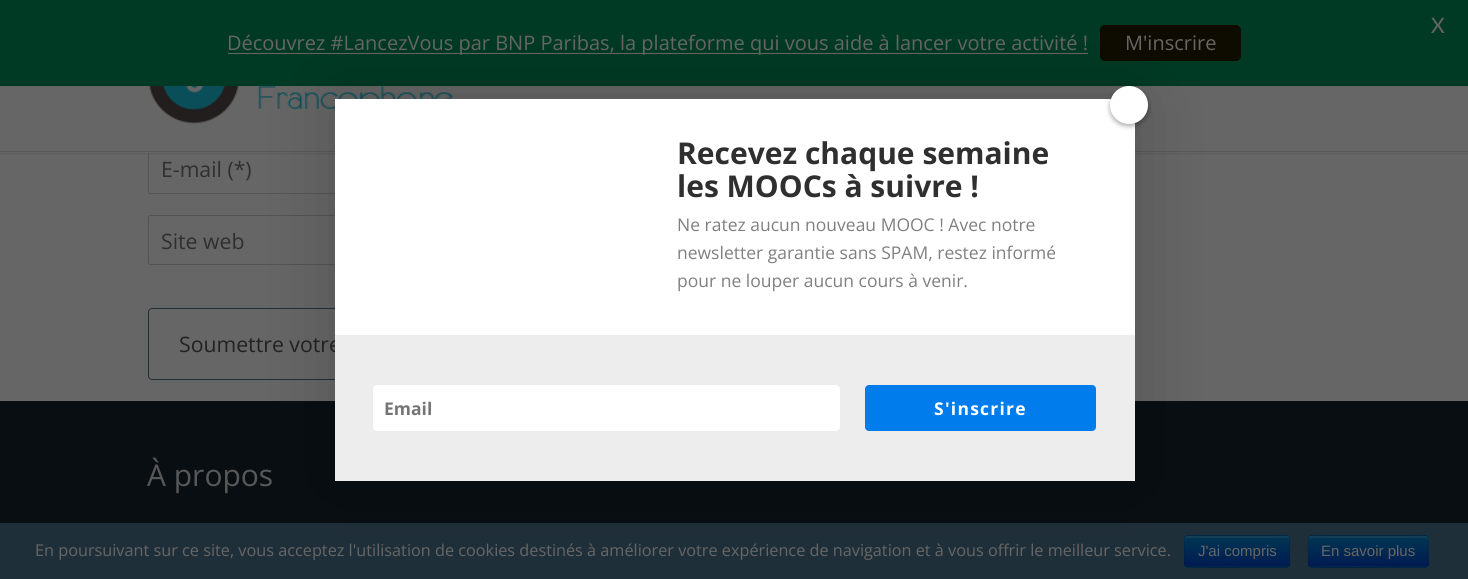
import math
import cairo

surface = cairo.ImageSurface(cairo.FORMAT_RGB24, 1468, 579)
ctx = cairo.Context(surface)
options = cairo.FontOptions()
options.set_hint_metrics(cairo.HINT_METRICS_OFF)
options.set_hint_style(cairo.HINT_STYLE_NONE)
ctx.set_font_options(options)
ctx.set_miter_limit(4)


def set_color(code):
    ctx.set_source_rgb(*(v / 255 for v in bytes.fromhex(code[-6:])))


def draw_text(x, y, s, family, size, color, bold=False, italic=False):
    ctx.select_font_face(family, cairo.FONT_SLANT_ITALIC if italic else cairo.FONT_SLANT_NORMAL, cairo.FONT_WEIGHT_BOLD if bold else cairo.FONT_WEIGHT_NORMAL)
    ctx.set_font_size(size)
    set_color(color)
    ctx.move_to(x, y)
    ctx.show_text(s)


def draw_spaced(x, y, s, letter, word):
    ctx.move_to(x, y)
    for ch in s:
        ctx.show_text(ch)
        ctx.rel_move_to(letter + word * (ch == ' '), 0)


def fill_rect(x, y, w, h, color):
    set_color(color)
    ctx.rectangle(x, y, w, h)
    ctx.fill()


def rounded_rect(x, y, w, h, r):
    ctx.new_sub_path()
    for i, (u, v) in enumerate([(x + w - r, y + h - r), (x + r, y + h - r), (x + r, y + r), (x + w - r, y + r)]):
        ctx.arc(u, v, r, i * math.pi / 2, (i + 1) * math.pi / 2)
    ctx.close_path()


def draw_shadow(x, y, w, h, r, blur, alpha):
    ctx.push_group_with_content(cairo.CONTENT_ALPHA)
    ctx.set_operator(cairo.OPERATOR_SOURCE)
    for i in range(15, -16, -2):
        e = blur * i / 6
        if min(w, h) + 2 * e > 0:
            ctx.set_source_rgba(0, 0, 0, alpha * math.erfc((i - 1) / 8.5) / 2)
            rounded_rect(x - e, y - e, w + 2 * e, h + 2 * e, max(0, min(r + e + blur * .6, min(w, h) / 2 + e)))
            ctx.fill()
    ctx.mask(ctx.pop_group())


def draw_image(path, x, y, w, h):
    ctx.save()
    ctx.set_source_surface(cairo.ImageSurface.create_from_png(path), x, y)
    ctx.rectangle(x, y, w, h)
    ctx.fill()
    ctx.restore()


set_color("#666666")
ctx.paint()
rounded_rect(148.5, 144.5, 384, 49, 2)
set_color("#545454")
ctx.set_line_width(1)
ctx.stroke()
set_color("#000000")
draw_shadow(0, 0, 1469, 153, 0, 1, 0.2)
fill_rect(0, 86, 1468, 67, "#666666")
fill_rect(0, 151, 1468, 1, "#585858")
draw_image("assets/img1.png", 148, 86, 305, 38)
fill_rect(0, 0, 1468, 86, "#003a24")
draw_text(1431, 33, "X", "Lato", 21.25, "#666666")
fill_rect(228, 53, 860, 1, "#666666")
draw_text(227, 50, "Découvrez #LancezVous par BNP Paribas, la plateforme qui vous aide à lancer votre activité !", "Open Sans", 20, "#666666")
set_color("#0e0b00")
rounded_rect(1100, 25, 141, 36, 5)
ctx.fill()
draw_text(1125, 50, "M'inscrire", "Open Sans", 20, "#666666")
draw_text(161, 177, "E-mail (*)", "Open Sans", 21.25, "#2f2f2f")
rounded_rect(148.5, 215.5, 384, 49, 2)
set_color("#545454")
ctx.stroke()
draw_text(161, 249, "Site web", "Open Sans", 21.25, "#2f2f2f")
rounded_rect(148.5, 308.5, 364, 71, 3.5)
set_color("#1f2f39")
ctx.stroke()
draw_text(179, 352, "Soumettre votre", "Open Sans", 21.25, "#222222")
fill_rect(0, 401, 1468, 122, "#080e12")
fill_rect(0, 523, 1468, 56, "#1f2f39")
set_color("#002c52")
rounded_rect(1184, 535, 106, 33, 4)
ctx.fill()
ctx.save()
rounded_rect(1184, 535, 106, 33, 4)
ctx.clip()
gradient = cairo.LinearGradient(1237, 536, 1237, 566)
gradient.add_color_stop_rgba(0, 0, 0.212, 0.322, 1)
gradient.add_color_stop_rgba(1, 0, 0.106, 0.322, 1)
ctx.set_source(gradient)
ctx.rectangle(1184, 536, 106, 30)
ctx.fill()
ctx.restore()
ctx.set_source_rgba(0.4, 0.4, 0.4, 0.2)
ctx.new_path()
ctx.move_to(1188, 538)
ctx.line_to(1286, 538)
ctx.curve_to(1288, 538, 1289, 539, 1289, 540)
ctx.line_to(1289, 538)
ctx.curve_to(1289, 537, 1288, 536, 1286, 536)
ctx.line_to(1188, 536)
ctx.curve_to(1186, 536, 1185, 537, 1185, 538)
ctx.line_to(1185, 540)
ctx.curve_to(1185, 539, 1186, 538, 1188, 538)
ctx.close_path()
ctx.fill()
ctx.new_path()
ctx.move_to(1288.5, 566)
ctx.line_to(1286, 567)
ctx.line_to(1270, 567)
ctx.curve_to(1261, 567, 1187.5, 568, 1185.5, 566)
set_color("#00213d")
ctx.set_line_width(1.2)
ctx.stroke()
ctx.new_path()
ctx.move_to(1185.5, 566)
ctx.curve_to(1183, 564, 1184.5, 558, 1184.5, 555.5)
ctx.curve_to(1184.5, 532, 1180, 535.5, 1204, 535.5)
ctx.line_to(1270, 535.5)
ctx.curve_to(1294, 535.5, 1289.5, 532, 1289.5, 555.5)
ctx.curve_to(1289.5, 558, 1290.5, 564, 1288.5, 566)
ctx.set_source_rgba(0, 0, 0, 0.1)
ctx.stroke()
set_color("#000000")
draw_shadow(335, 99, 800, 382, 0, 37.5, 0.2)
fill_rect(335, 99, 800, 236, "#ffffff")
set_color("#000000")
draw_shadow(1110, 89, 38, 37, 18.5, 2.5, 0.34)
set_color("#ffffff")
ctx.arc(1129, 105, 19, 0, 2 * math.pi)
ctx.fill()
draw_text(677, 164, "Recevez chaque semaine", "Open Sans", 30, "#2f2f2f", bold=True)
draw_text(677, 197, "les MOOCs à suivre !", "Open Sans", 30, "#2f2f2f", bold=True)
draw_text(677, 231, "Ne ratez aucun nouveau MOOC ! Avec notre", "Open Sans", 17.5, "#808080")
draw_text(677, 259, "newsletter garantie sans SPAM, restez informé", "Open Sans", 17.5, "#808080")
draw_text(677, 287, "pour ne louper aucun cours à venir.", "Open Sans", 17.5, "#808080")
fill_rect(335, 335, 800, 146, "#ededed")
set_color("#ffffff")
rounded_rect(373, 385, 467, 46, 4)
ctx.fill()
draw_text(384, 415, "Email", "Open Sans", 17.5, "#757575", bold=True)
set_color("#007ced")
rounded_rect(865, 385, 231, 46, 4)
ctx.fill()
set_color("#ffffff")
draw_spaced(934, 415, "S'inscrire", 1.25, 0)
draw_text(147, 486, "À propos", "Open Sans", 30, "#585858")
draw_text(35, 556, "En poursuivant sur ce site, vous acceptez l'utilisation de cookies destinés à améliorer votre expérience de navigation et à vous offrir le meilleur service.", "Open Sans", 16.25, "#666666")
draw_text(1198, 556, "J'ai compris", "Liberation Sans", 15, "#666666")
set_color("#002c52")
rounded_rect(1308, 535, 121, 33, 4)
ctx.fill()
ctx.save()
rounded_rect(1308, 535, 121, 33, 4)
ctx.clip()
gradient = cairo.LinearGradient(1368, 536, 1368, 566)
gradient.add_color_stop_rgba(0, 0, 0.212, 0.322, 1)
gradient.add_color_stop_rgba(1, 0, 0.106, 0.322, 1)
ctx.set_source(gradient)
ctx.rectangle(1308, 536, 121, 30)
ctx.fill()
ctx.restore()
ctx.set_source_rgba(0.4, 0.4, 0.4, 0.2)
ctx.new_path()
ctx.move_to(1311, 538)
ctx.line_to(1425, 538)
ctx.curve_to(1426, 538, 1428, 539, 1428, 540)
ctx.line_to(1428, 538)
ctx.curve_to(1428, 537, 1427, 536, 1426, 536)
ctx.line_to(1312, 536)
ctx.curve_to(1310, 536, 1309, 537, 1309, 538)
ctx.line_to(1309, 540)
ctx.curve_to(1309, 539, 1310, 538, 1311, 538)
ctx.close_path()
ctx.fill()
ctx.new_path()
ctx.move_to(1427, 566)
ctx.line_to(1425, 567)
ctx.line_to(1406, 567)
ctx.curve_to(1396, 567, 1312, 568, 1309.5, 566.5)
ctx.line_to(1309, 566)
ctx.set_source_rgba(0, 0, 0, 0.25)
ctx.stroke()
ctx.new_path()
ctx.move_to(1309, 566)
ctx.curve_to(1307, 564, 1308, 558, 1308, 555.5)
ctx.curve_to(1308, 531, 1304, 535.5, 1330, 535.5)
ctx.line_to(1406, 535.5)
ctx.curve_to(1432.5, 535.5, 1428, 531, 1428, 555.5)
ctx.curve_to(1428, 558, 1429.5, 564, 1427, 566)
ctx.set_source_rgba(0, 0, 0, 0.1)
ctx.stroke()
draw_text(1321, 556, "En savoir plus", "Liberation Sans", 15, "#666666")
surface.write_to_png("output.png")
